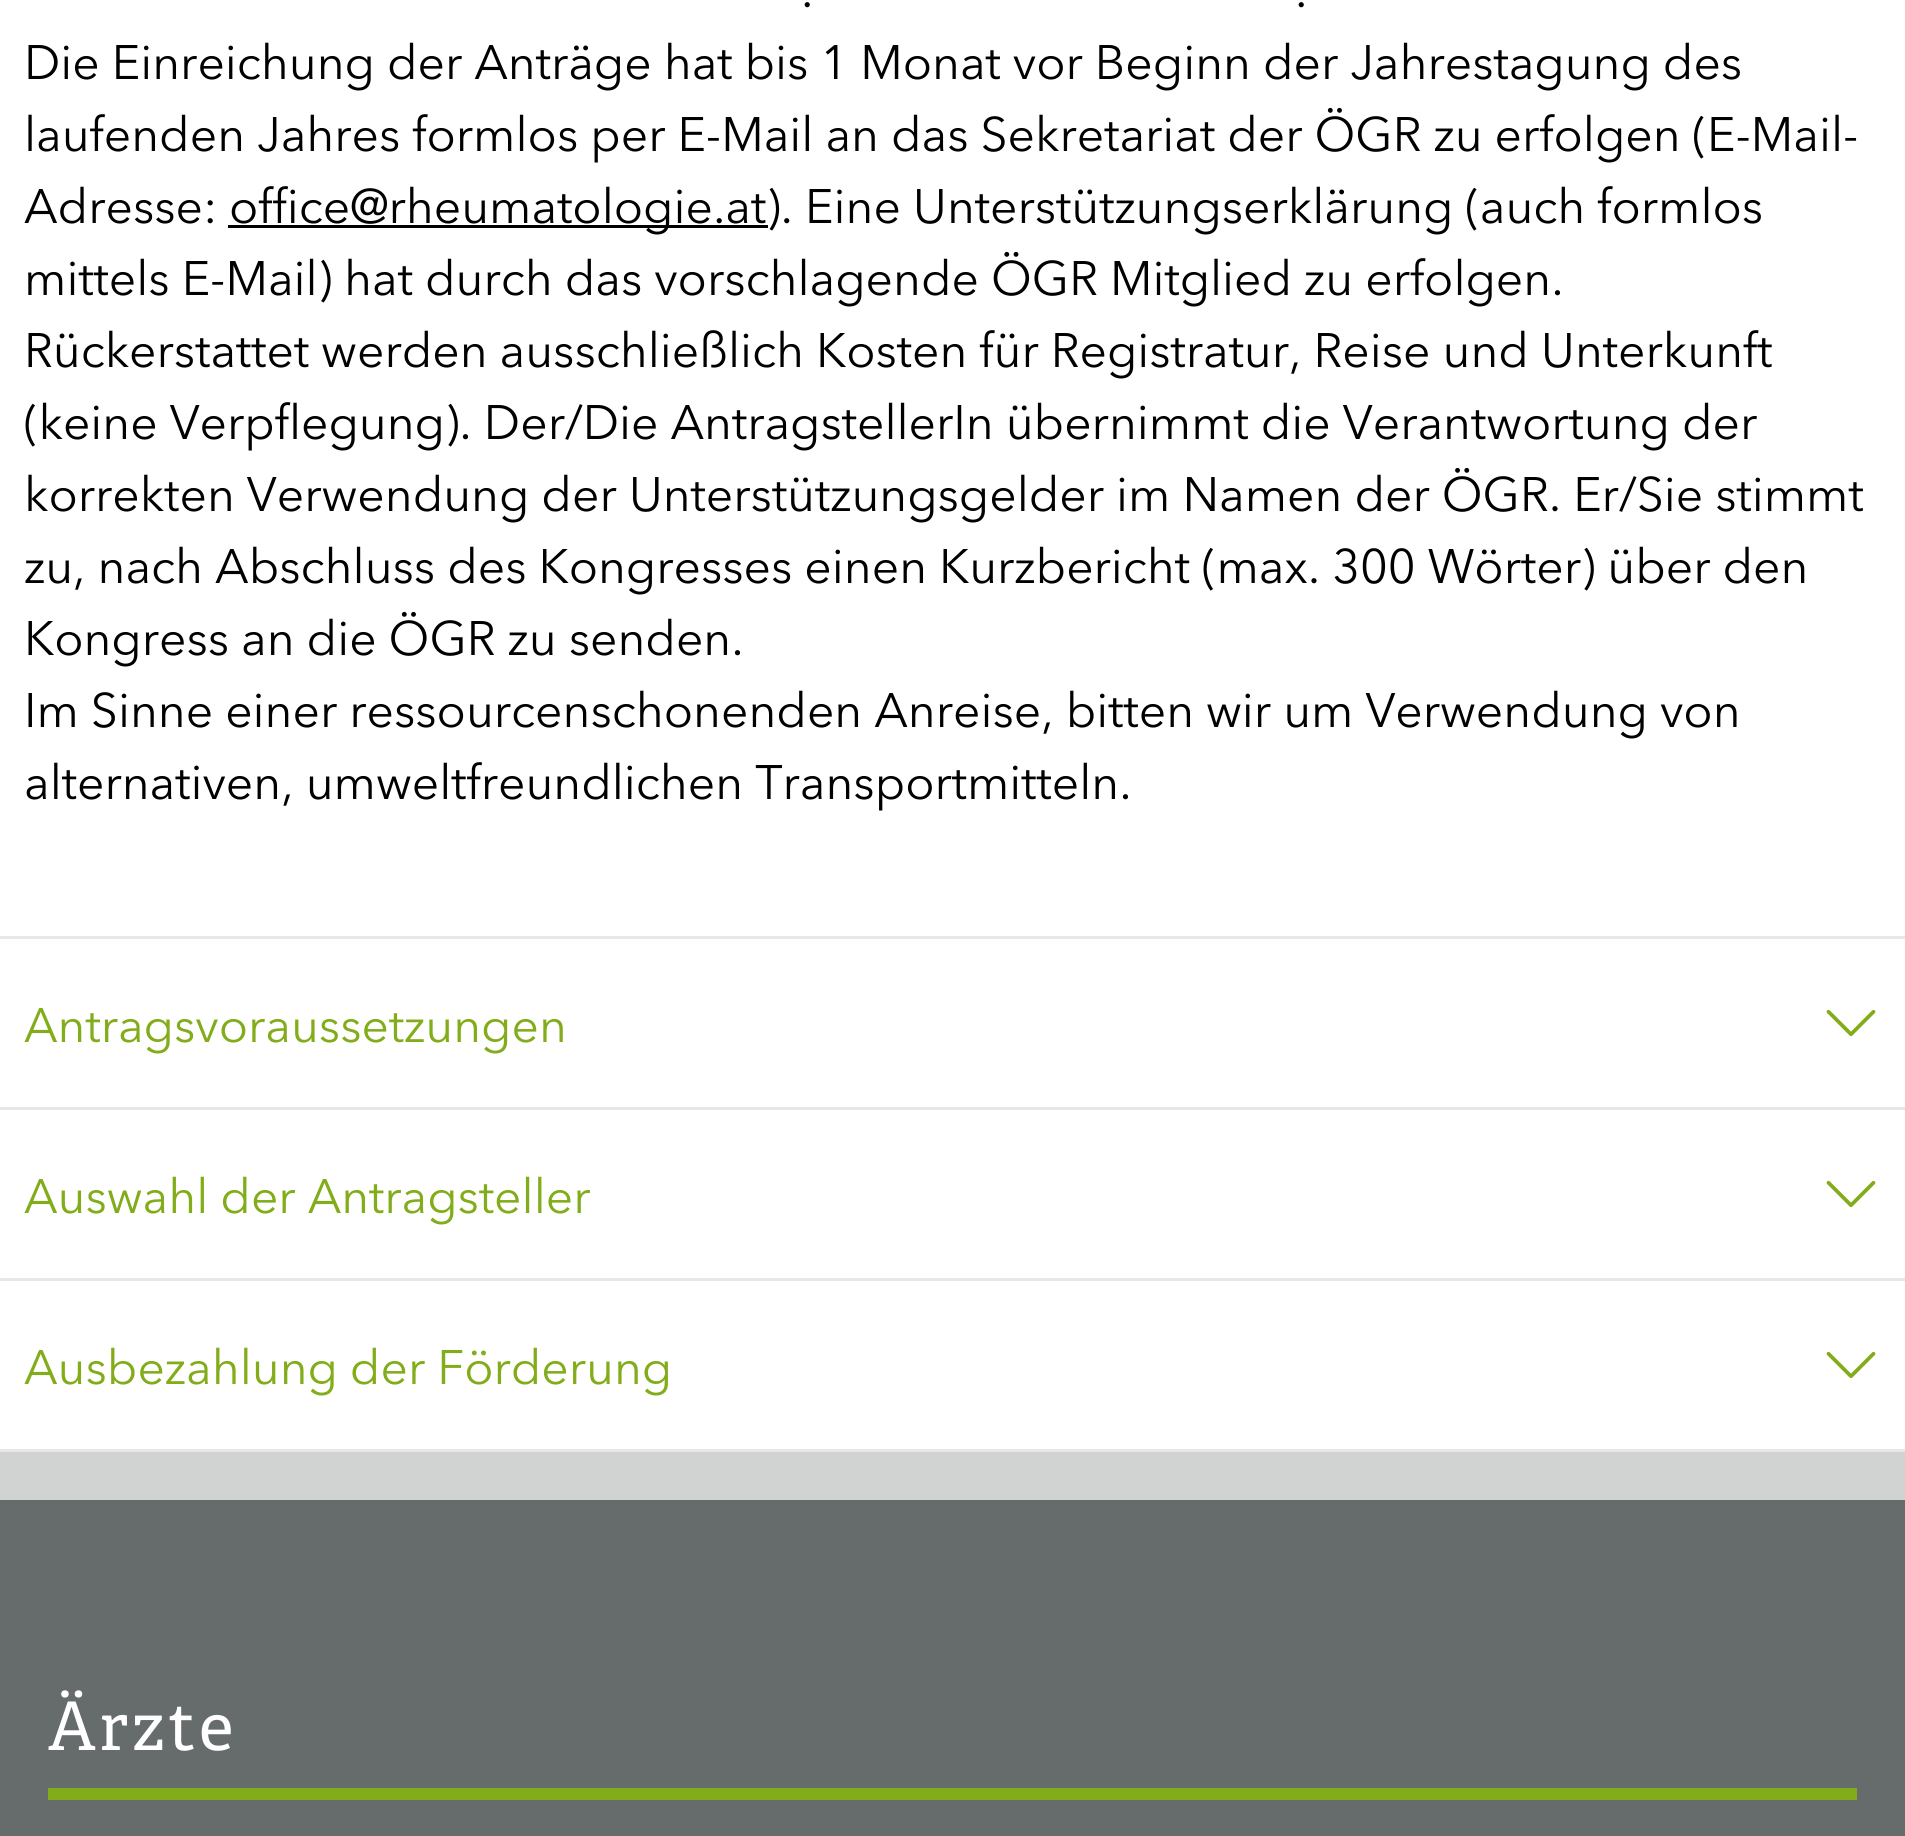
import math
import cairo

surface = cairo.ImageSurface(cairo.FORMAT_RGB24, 1905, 1836)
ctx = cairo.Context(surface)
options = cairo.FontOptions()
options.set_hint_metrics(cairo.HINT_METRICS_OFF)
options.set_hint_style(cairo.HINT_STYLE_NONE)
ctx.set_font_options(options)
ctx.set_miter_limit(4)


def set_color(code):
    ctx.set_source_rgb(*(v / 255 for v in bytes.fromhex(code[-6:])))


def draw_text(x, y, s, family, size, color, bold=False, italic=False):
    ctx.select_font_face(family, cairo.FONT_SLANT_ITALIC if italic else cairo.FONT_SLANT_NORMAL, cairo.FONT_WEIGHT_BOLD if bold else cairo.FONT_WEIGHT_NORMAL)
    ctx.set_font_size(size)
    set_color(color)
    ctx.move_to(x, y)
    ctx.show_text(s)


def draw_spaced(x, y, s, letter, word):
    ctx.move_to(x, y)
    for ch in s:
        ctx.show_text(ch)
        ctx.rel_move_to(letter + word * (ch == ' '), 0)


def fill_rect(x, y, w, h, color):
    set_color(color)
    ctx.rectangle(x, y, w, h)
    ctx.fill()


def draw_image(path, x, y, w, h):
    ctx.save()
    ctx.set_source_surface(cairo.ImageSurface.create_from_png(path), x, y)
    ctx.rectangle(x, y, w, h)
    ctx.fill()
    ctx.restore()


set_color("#d1d3d2")
ctx.paint()
fill_rect(0, 0, 1905, 936, "#ffffff")
fill_rect(0, 936, 1905, 3, "#e5e7eb")
draw_text(801, 7, ".", "Avenir Next", 48, "#000000")
draw_text(1295, 7, ".", "Avenir Next", 48, "#000000")
draw_text(24, 79, "Die Einreichung der Anträge hat bis 1 Monat vor Beginn der Jahrestagung des", "Avenir Next", 48, "#000000")
draw_text(24, 151, "laufenden Jahres formlos per E-Mail an das Sekretariat der ÖGR zu erfolgen (E-Mail-", "Avenir Next", 48, "#000000")
draw_text(24, 223, "Adresse:", "Avenir Next", 48, "#000000")
fill_rect(228, 225, 540, 3, "#000000")
draw_text(229, 223, "office@rheumatologie.at). Eine Unterstützungserklärung (auch formlos", "Avenir Next", 48, "#000000")
draw_text(24, 295, "mittels E-Mail) hat durch das vorschlagende ÖGR Mitglied zu erfolgen.", "Avenir Next", 48, "#000000")
draw_text(24, 367, "Rückerstattet werden ausschließlich Kosten für Registratur, Reise und Unterkunft", "Avenir Next", 48, "#000000")
draw_text(24, 439, "(keine Verpflegung). Der/Die AntragstellerIn übernimmt die Verantwortung der", "Avenir Next", 48, "#000000")
draw_text(24, 511, "korrekten Verwendung der Unterstützungsgelder im Namen der ÖGR. Er/Sie stimmt", "Avenir Next", 48, "#000000")
draw_text(24, 583, "zu, nach Abschluss des Kongresses einen Kurzbericht (max. 300 Wörter) über den", "Avenir Next", 48, "#000000")
draw_text(24, 655, "Kongress an die ÖGR zu senden.", "Avenir Next", 48, "#000000")
draw_text(24, 727, "Im Sinne einer ressourcenschonenden Anreise, bitten wir um Verwendung von", "Avenir Next", 48, "#000000")
draw_text(24, 799, "alternativen, umweltfreundlichen Transportmitteln.", "Avenir Next", 48, "#000000")
fill_rect(0, 939, 1905, 168, "#ffffff")
fill_rect(0, 1107, 1905, 3, "#e5e7eb")
draw_text(24, 1042, "Antragsvoraussetzungen", "Avenir Next", 48, "#82ac1a")
draw_image("assets/img1.png", 1826, 1009, 50, 28)
fill_rect(0, 1110, 1905, 168, "#ffffff")
fill_rect(0, 1278, 1905, 3, "#e5e7eb")
draw_text(24, 1213, "Auswahl der Antragsteller", "Avenir Next", 48, "#82ac1a")
draw_image("assets/img1.png", 1826, 1180, 50, 28)
fill_rect(0, 1281, 1905, 168, "#ffffff")
fill_rect(0, 1449, 1905, 3, "#e5e7eb")
draw_text(24, 1384, "Ausbezahlung der Förderung", "Avenir Next", 48, "#82ac1a")
draw_image("assets/img1.png", 1826, 1351, 50, 28)
fill_rect(0, 1500, 1905, 336, "#666b6b")
fill_rect(48, 1788, 1809, 12, "#82ac1a")
ctx.select_font_face("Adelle")
ctx.set_font_size(67)
set_color("#ffffff")
draw_spaced(48, 1750, "Ärzte", 3.5, 0)
surface.write_to_png("output.png")
